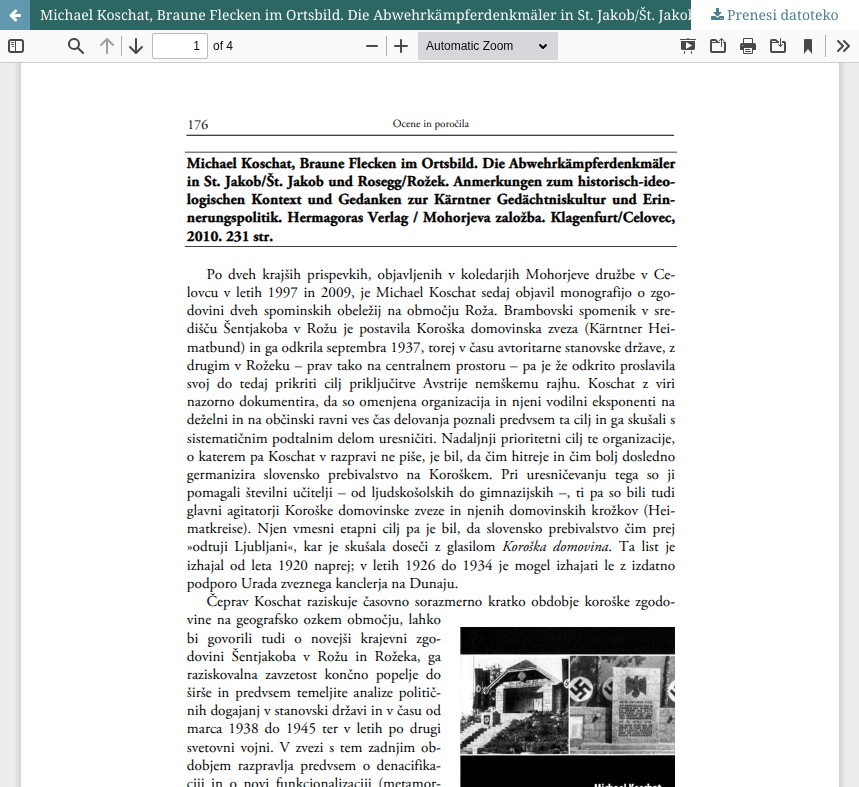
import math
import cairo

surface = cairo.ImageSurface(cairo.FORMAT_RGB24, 859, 787)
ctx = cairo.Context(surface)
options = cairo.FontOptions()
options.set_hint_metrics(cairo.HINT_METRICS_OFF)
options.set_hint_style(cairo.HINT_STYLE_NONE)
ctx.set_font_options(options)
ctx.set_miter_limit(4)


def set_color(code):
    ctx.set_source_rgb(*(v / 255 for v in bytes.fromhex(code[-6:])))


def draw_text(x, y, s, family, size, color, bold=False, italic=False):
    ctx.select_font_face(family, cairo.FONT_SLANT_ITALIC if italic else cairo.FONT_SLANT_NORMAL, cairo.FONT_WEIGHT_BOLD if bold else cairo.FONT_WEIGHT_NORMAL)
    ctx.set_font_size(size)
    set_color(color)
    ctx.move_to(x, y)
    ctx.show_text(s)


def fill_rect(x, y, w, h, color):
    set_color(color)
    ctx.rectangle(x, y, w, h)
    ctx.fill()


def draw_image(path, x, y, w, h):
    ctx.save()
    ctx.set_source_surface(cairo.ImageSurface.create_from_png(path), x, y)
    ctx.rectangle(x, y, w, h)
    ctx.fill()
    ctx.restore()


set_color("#ffffff")
ctx.paint()
fill_rect(30, 0, 661, 30, "#2d6764")
fill_rect(0, 0, 30, 30, "#6298ae")
draw_image("assets/img1.png", 9, 9, 12, 13)
draw_text(40, 20, "Michael Koschat, Braune Flecken im Ortsbild. Die Abwehrkämpferdenkmäler in St. Jakob/Št. Jakob", "Noto Serif", 14, "#ffffff")
draw_image("assets/img2.png", 711, 8, 13, 12)
draw_text(727, 20, "Prenesi datoteko", "Noto Serif", 14, "#4b7d92")
draw_image("assets/img3.png", 0, 30, 859, 757)
surface.write_to_png("output.png")
